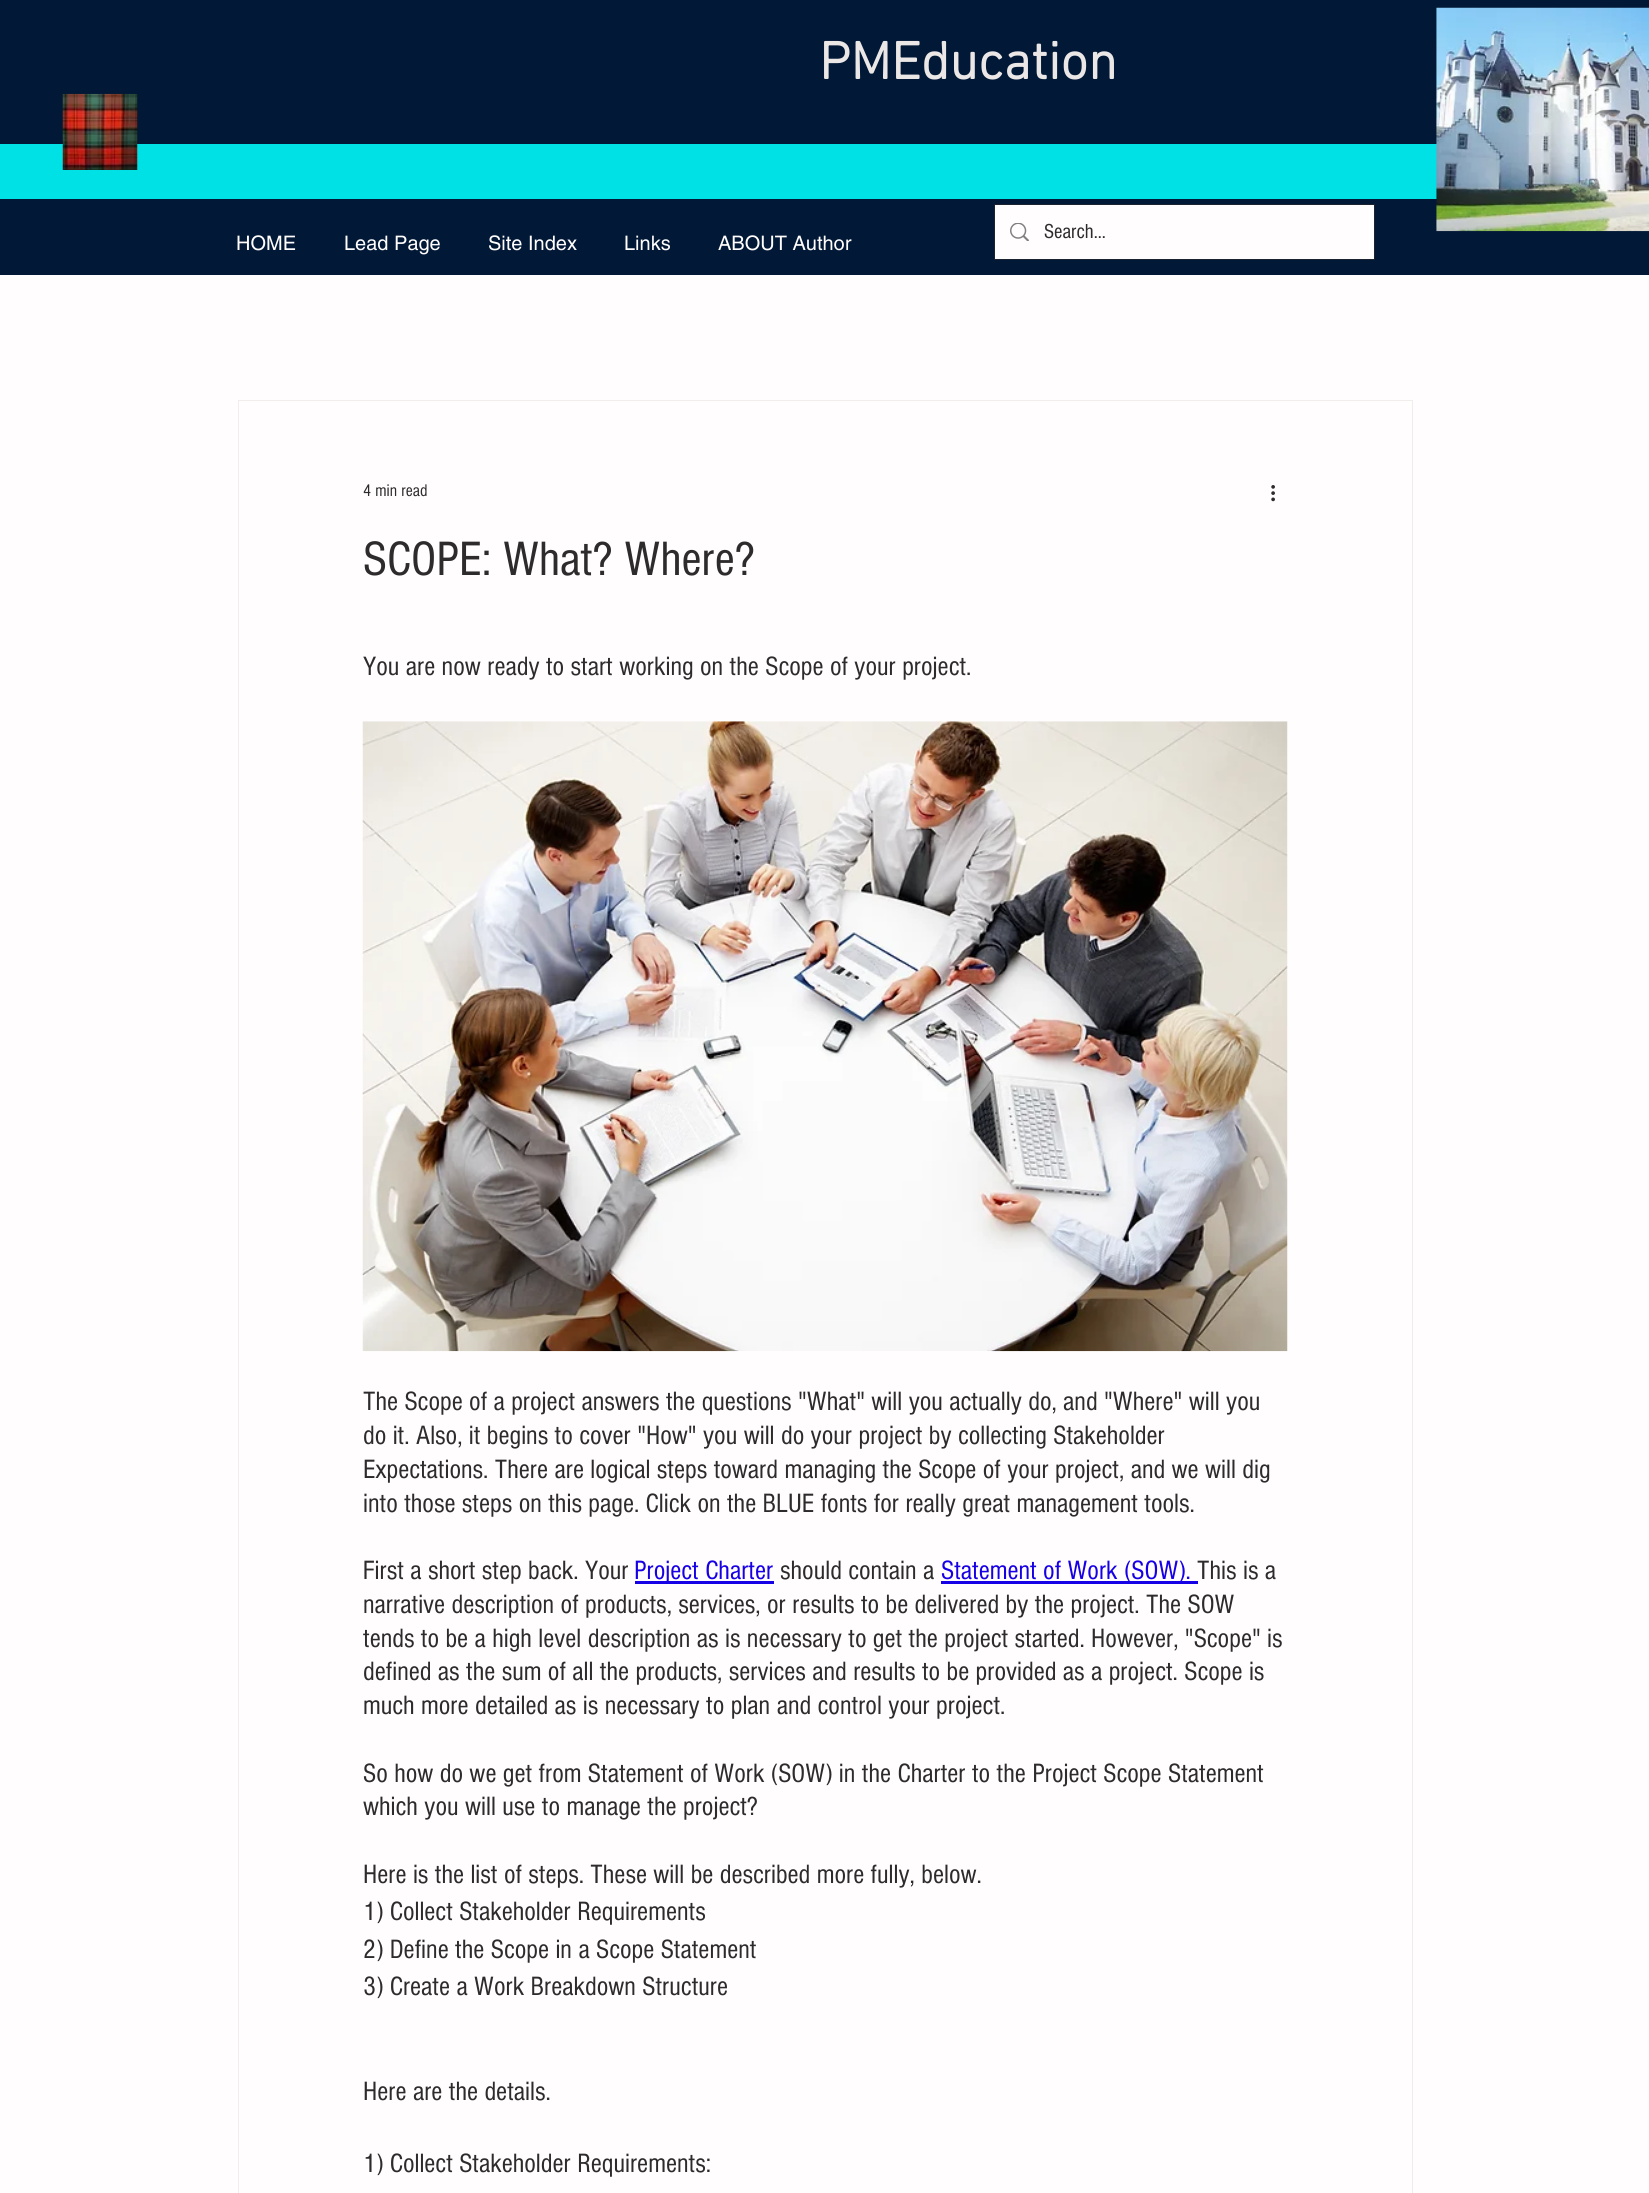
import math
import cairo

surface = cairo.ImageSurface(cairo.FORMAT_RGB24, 1649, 2193)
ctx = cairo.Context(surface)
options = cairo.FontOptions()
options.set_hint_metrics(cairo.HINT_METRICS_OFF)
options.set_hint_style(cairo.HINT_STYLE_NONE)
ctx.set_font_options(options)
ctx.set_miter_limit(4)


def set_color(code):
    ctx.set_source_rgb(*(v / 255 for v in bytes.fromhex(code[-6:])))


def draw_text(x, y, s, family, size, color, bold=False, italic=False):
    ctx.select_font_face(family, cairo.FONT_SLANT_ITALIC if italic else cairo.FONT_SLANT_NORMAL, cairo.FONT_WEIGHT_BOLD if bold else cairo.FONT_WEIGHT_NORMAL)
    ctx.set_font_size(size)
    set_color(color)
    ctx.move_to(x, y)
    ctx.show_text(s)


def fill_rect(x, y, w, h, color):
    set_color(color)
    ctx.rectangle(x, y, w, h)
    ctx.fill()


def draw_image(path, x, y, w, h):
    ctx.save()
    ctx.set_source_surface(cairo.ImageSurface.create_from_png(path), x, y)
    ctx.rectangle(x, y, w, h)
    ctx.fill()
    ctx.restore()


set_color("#fffdfd")
ctx.paint()
fill_rect(0, 0, 1649, 275, "#011836")
draw_text(819, 79, "PMEducation", "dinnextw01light", 53.75, "#ece7e7", bold=True)
fill_rect(0, 144, 1437, 55, "#00e1e5")
draw_image("assets/img1.png", 1436, 7, 213, 225)
draw_image("assets/img2.png", 62, 93, 76, 77)
ctx.rectangle(994.5, 204.5, 380, 55)
set_color("#1b232f")
ctx.set_line_width(1)
ctx.stroke()
fill_rect(995, 205, 379, 54, "#fffdfd")
draw_image("assets/img3.png", 1010, 223, 19, 18)
draw_text(1044, 238, "Search...", "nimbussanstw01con", 21, "#2d2b2b")
draw_text(236, 250, "HOME", "helvetica", 20, "#fffdfd")
draw_text(344, 250, "Lead Page", "helvetica", 20, "#fffdfd")
draw_text(488, 250, "Site Index", "helvetica", 20, "#fffdfd")
draw_text(624, 250, "Links", "helvetica", 20, "#fffdfd")
draw_text(718, 250, "ABOUT Author", "helvetica", 20, "#fffdfd")
ctx.rectangle(238.5, 400.5, 1174, 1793)
set_color("#f1eded")
ctx.stroke()
draw_text(363, 496, "4 min read", "nimbussanstw01con", 17.5, "#2d2b2b")
draw_image("assets/img4.png", 1271, 485, 4, 17)
draw_text(363, 575, "SCOPE: What? Where?", "nimbussanstw01con", 50, "#2d2b2b")
draw_text(363, 675, "You are now ready to start working on the Scope of your project.", "nimbussanstw01con", 27.5, "#2d2b2b")
draw_image("assets/img5.png", 362, 721, 926, 631)
draw_text(363, 1410, "The Scope of a project answers the questions \"What\" will you actually do, and \"Where\" will you", "nimbussanstw01con", 27.5, "#2d2b2b")
draw_text(363, 1444, "do it. Also, it begins to cover \"How\" you will do your project by collecting Stakeholder", "nimbussanstw01con", 27.5, "#2d2b2b")
draw_text(363, 1478, "Expectations. There are logical steps toward managing the Scope of your project, and we will dig", "nimbussanstw01con", 27.5, "#2d2b2b")
draw_text(363, 1512, "into those steps on this page. Click on the BLUE fonts for really great management tools.", "nimbussanstw01con", 27.5, "#2d2b2b")
draw_text(363, 1579, "First a short step back. Your", "nimbussanstw01con", 27.5, "#2d2b2b")
fill_rect(635, 1581, 139, 3, "#1600e5")
draw_text(634, 1579, "Project Charter", "nimbussanstw01con", 27.5, "#1600e5")
draw_text(780, 1579, "should contain a", "nimbussanstw01con", 27.5, "#2d2b2b")
fill_rect(941, 1581, 257, 3, "#1600e5")
draw_text(941, 1579, "Statement of Work (SOW).", "nimbussanstw01con", 27.5, "#1600e5")
draw_text(1197, 1579, "This is a", "nimbussanstw01con", 27.5, "#2d2b2b")
draw_text(363, 1613, "narrative description of products, services, or results to be delivered by the project. The SOW", "nimbussanstw01con", 27.5, "#2d2b2b")
draw_text(363, 1647, "tends to be a high level description as is necessary to get the project started. However, \"Scope\" is", "nimbussanstw01con", 27.5, "#2d2b2b")
draw_text(363, 1680, "defined as the sum of all the products, services and results to be provided as a project. Scope is", "nimbussanstw01con", 27.5, "#2d2b2b")
draw_text(363, 1714, "much more detailed as is necessary to plan and control your project.", "nimbussanstw01con", 27.5, "#2d2b2b")
draw_text(363, 1782, "So how do we get from Statement of Work (SOW) in the Charter to the Project Scope Statement", "nimbussanstw01con", 27.5, "#2d2b2b")
draw_text(363, 1815, "which you will use to manage the project?", "nimbussanstw01con", 27.5, "#2d2b2b")
draw_text(363, 1883, "Here is the list of steps. These will be described more fully, below.", "nimbussanstw01con", 27.5, "#2d2b2b")
draw_text(363, 1920, "1) Collect Stakeholder Requirements", "nimbussanstw01con", 27.5, "#2d2b2b")
draw_text(363, 1958, "2) Define the Scope in a Scope Statement", "nimbussanstw01con", 27.5, "#2d2b2b")
draw_text(363, 1995, "3) Create a Work Breakdown Structure", "nimbussanstw01con", 27.5, "#2d2b2b")
draw_text(363, 2100, "Here are the details.", "nimbussanstw01con", 27.5, "#2d2b2b")
draw_text(363, 2172, "1) Collect Stakeholder Requirements:", "nimbussanstw01con", 27.5, "#2d2b2b")
surface.write_to_png("output.png")
